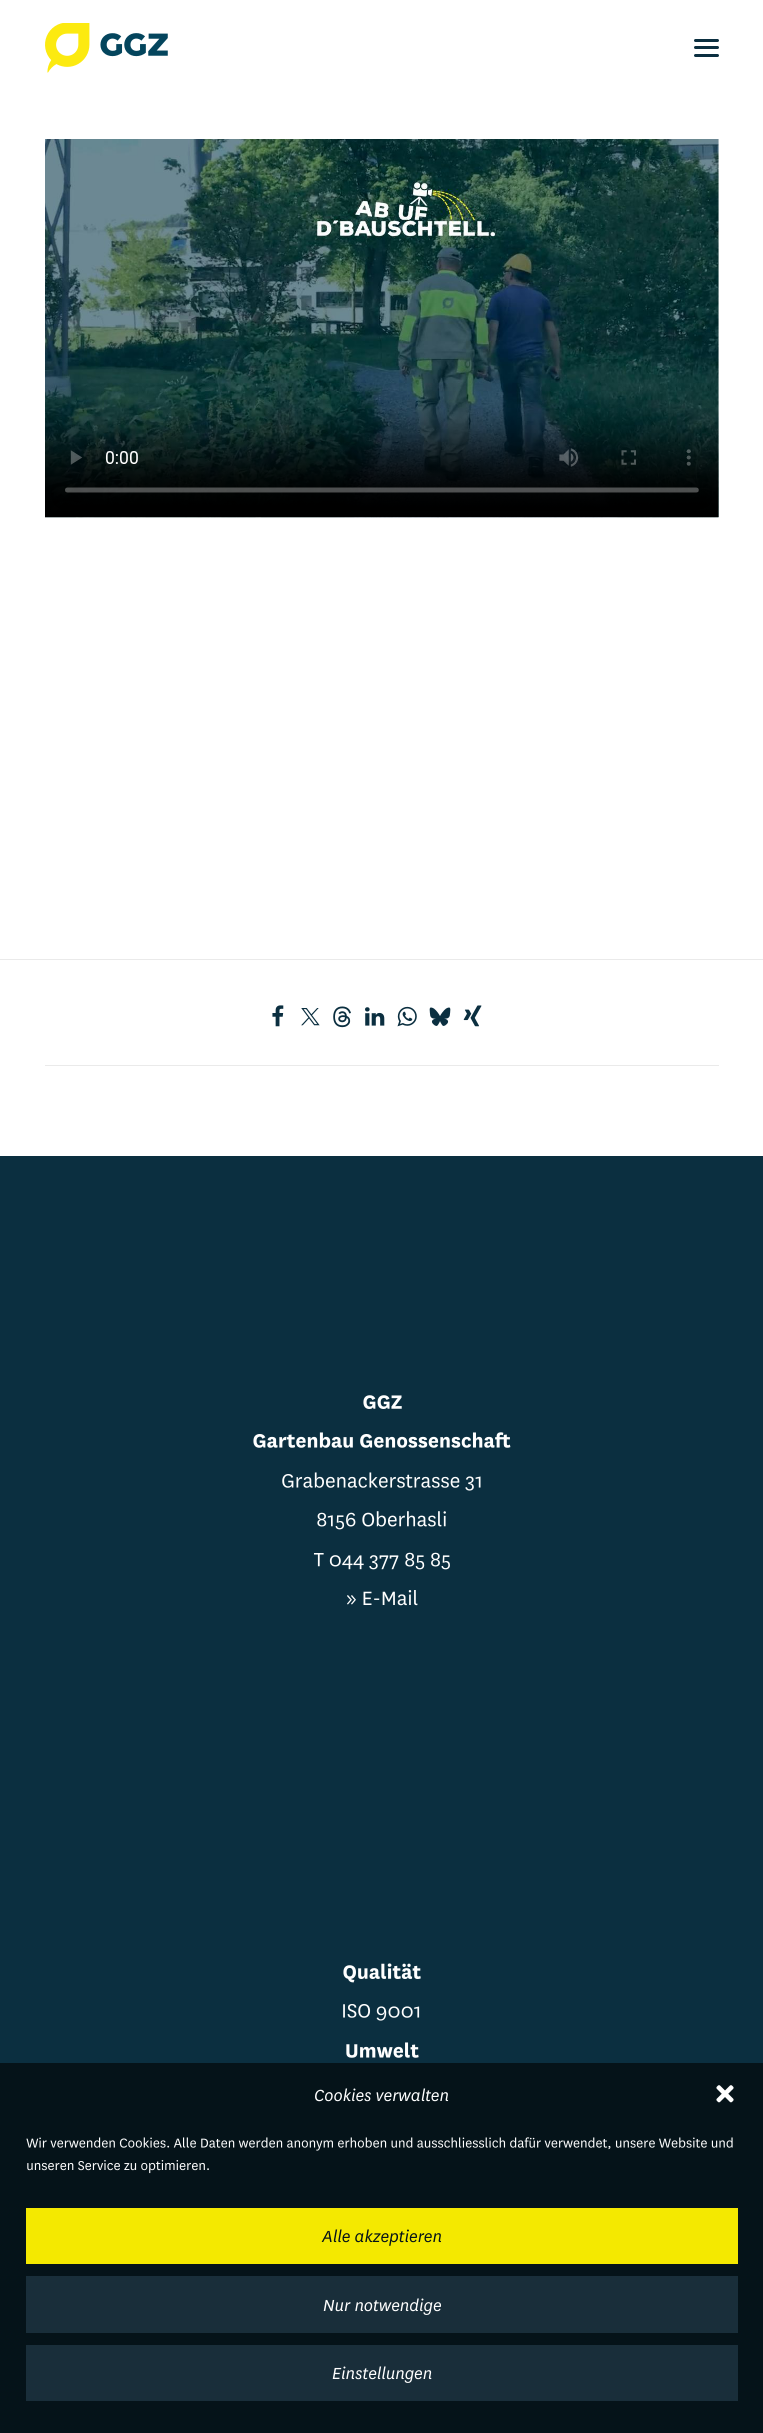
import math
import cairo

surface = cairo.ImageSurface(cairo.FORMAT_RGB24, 763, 2433)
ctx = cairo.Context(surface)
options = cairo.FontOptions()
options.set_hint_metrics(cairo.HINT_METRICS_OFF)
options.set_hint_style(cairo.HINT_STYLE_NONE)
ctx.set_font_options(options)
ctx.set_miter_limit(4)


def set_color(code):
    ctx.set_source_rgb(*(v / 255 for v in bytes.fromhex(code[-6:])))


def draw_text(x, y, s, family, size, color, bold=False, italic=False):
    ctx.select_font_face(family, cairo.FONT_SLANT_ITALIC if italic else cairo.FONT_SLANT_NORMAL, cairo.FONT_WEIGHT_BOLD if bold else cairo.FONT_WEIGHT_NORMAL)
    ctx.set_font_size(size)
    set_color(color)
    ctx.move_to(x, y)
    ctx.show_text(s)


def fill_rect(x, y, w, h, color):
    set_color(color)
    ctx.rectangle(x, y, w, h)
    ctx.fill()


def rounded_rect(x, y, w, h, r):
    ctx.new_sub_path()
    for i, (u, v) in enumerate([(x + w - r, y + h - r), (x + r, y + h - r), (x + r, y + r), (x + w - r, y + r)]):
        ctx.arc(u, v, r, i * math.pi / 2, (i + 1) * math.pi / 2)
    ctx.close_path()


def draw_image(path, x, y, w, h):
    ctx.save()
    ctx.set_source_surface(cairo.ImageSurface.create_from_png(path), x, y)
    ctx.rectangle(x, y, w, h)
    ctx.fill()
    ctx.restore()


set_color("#ffffff")
ctx.paint()
draw_image("assets/img1.png", 45, 23, 123, 50)
set_color("#0b2f40")
rounded_rect(694, 46, 25, 3, 1.5)
ctx.fill()
rounded_rect(694, 39, 25, 3, 1.5)
ctx.fill()
rounded_rect(694, 54, 25, 3, 1.5)
ctx.fill()
draw_image("assets/img2.png", 45, 139, 674, 379)
fill_rect(0, 959, 763, 1, "#eaeaea")
fill_rect(45, 1065, 674, 1, "#eaeaea")
draw_image("assets/img3.png", 272, 1005, 12, 22)
draw_image("assets/img4.png", 301, 1008, 19, 18)
draw_image("assets/img5.png", 333, 1006, 18, 22)
draw_image("assets/img6.png", 365, 1007, 20, 19)
draw_image("assets/img7.png", 397, 1006, 20, 21)
draw_image("assets/img8.png", 429, 1007, 22, 19)
draw_image("assets/img9.png", 463, 1005, 19, 22)
fill_rect(0, 1156, 763, 907, "#0b2f40")
draw_image("assets/img10.png", 363, 1395, 39, 14)
draw_image("assets/img11.png", 253, 1432, 258, 16)
draw_image("assets/img12.png", 282, 1472, 199, 19)
draw_image("assets/img13.png", 317, 1511, 129, 19)
draw_image("assets/img14.png", 313, 1553, 11, 14)
draw_image("assets/img15.png", 329, 1552, 121, 18)
draw_image("assets/img16.png", 347, 1590, 71, 16)
draw_image("assets/img17.png", 343, 1963, 78, 20)
draw_image("assets/img18.png", 343, 2004, 77, 17)
draw_image("assets/img19.png", 346, 2042, 73, 16)
fill_rect(0, 2063, 763, 370, "#051319")
draw_text(314, 2101, "Cookies verwalten", "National", 18.75, "#ffffff", italic=True)
draw_image("assets/img20.png", 716, 2085, 18, 18)
draw_image("assets/img21.png", 26, 2137, 707, 14)
draw_image("assets/img22.png", 27, 2160, 182, 14)
fill_rect(26, 2208, 712, 56, "#f4e900")
draw_text(322, 2242, "Alle akzeptieren", "National", 18.75, "#051319", italic=True)
fill_rect(26, 2276, 712, 57, "#192e3a")
draw_text(323, 2311, "Nur notwendige", "National", 18.75, "#ffffff", italic=True)
fill_rect(26, 2345, 712, 56, "#192e3a")
draw_text(332, 2379, "Einstellungen", "National", 18.75, "#ffffff", italic=True)
surface.write_to_png("output.png")
